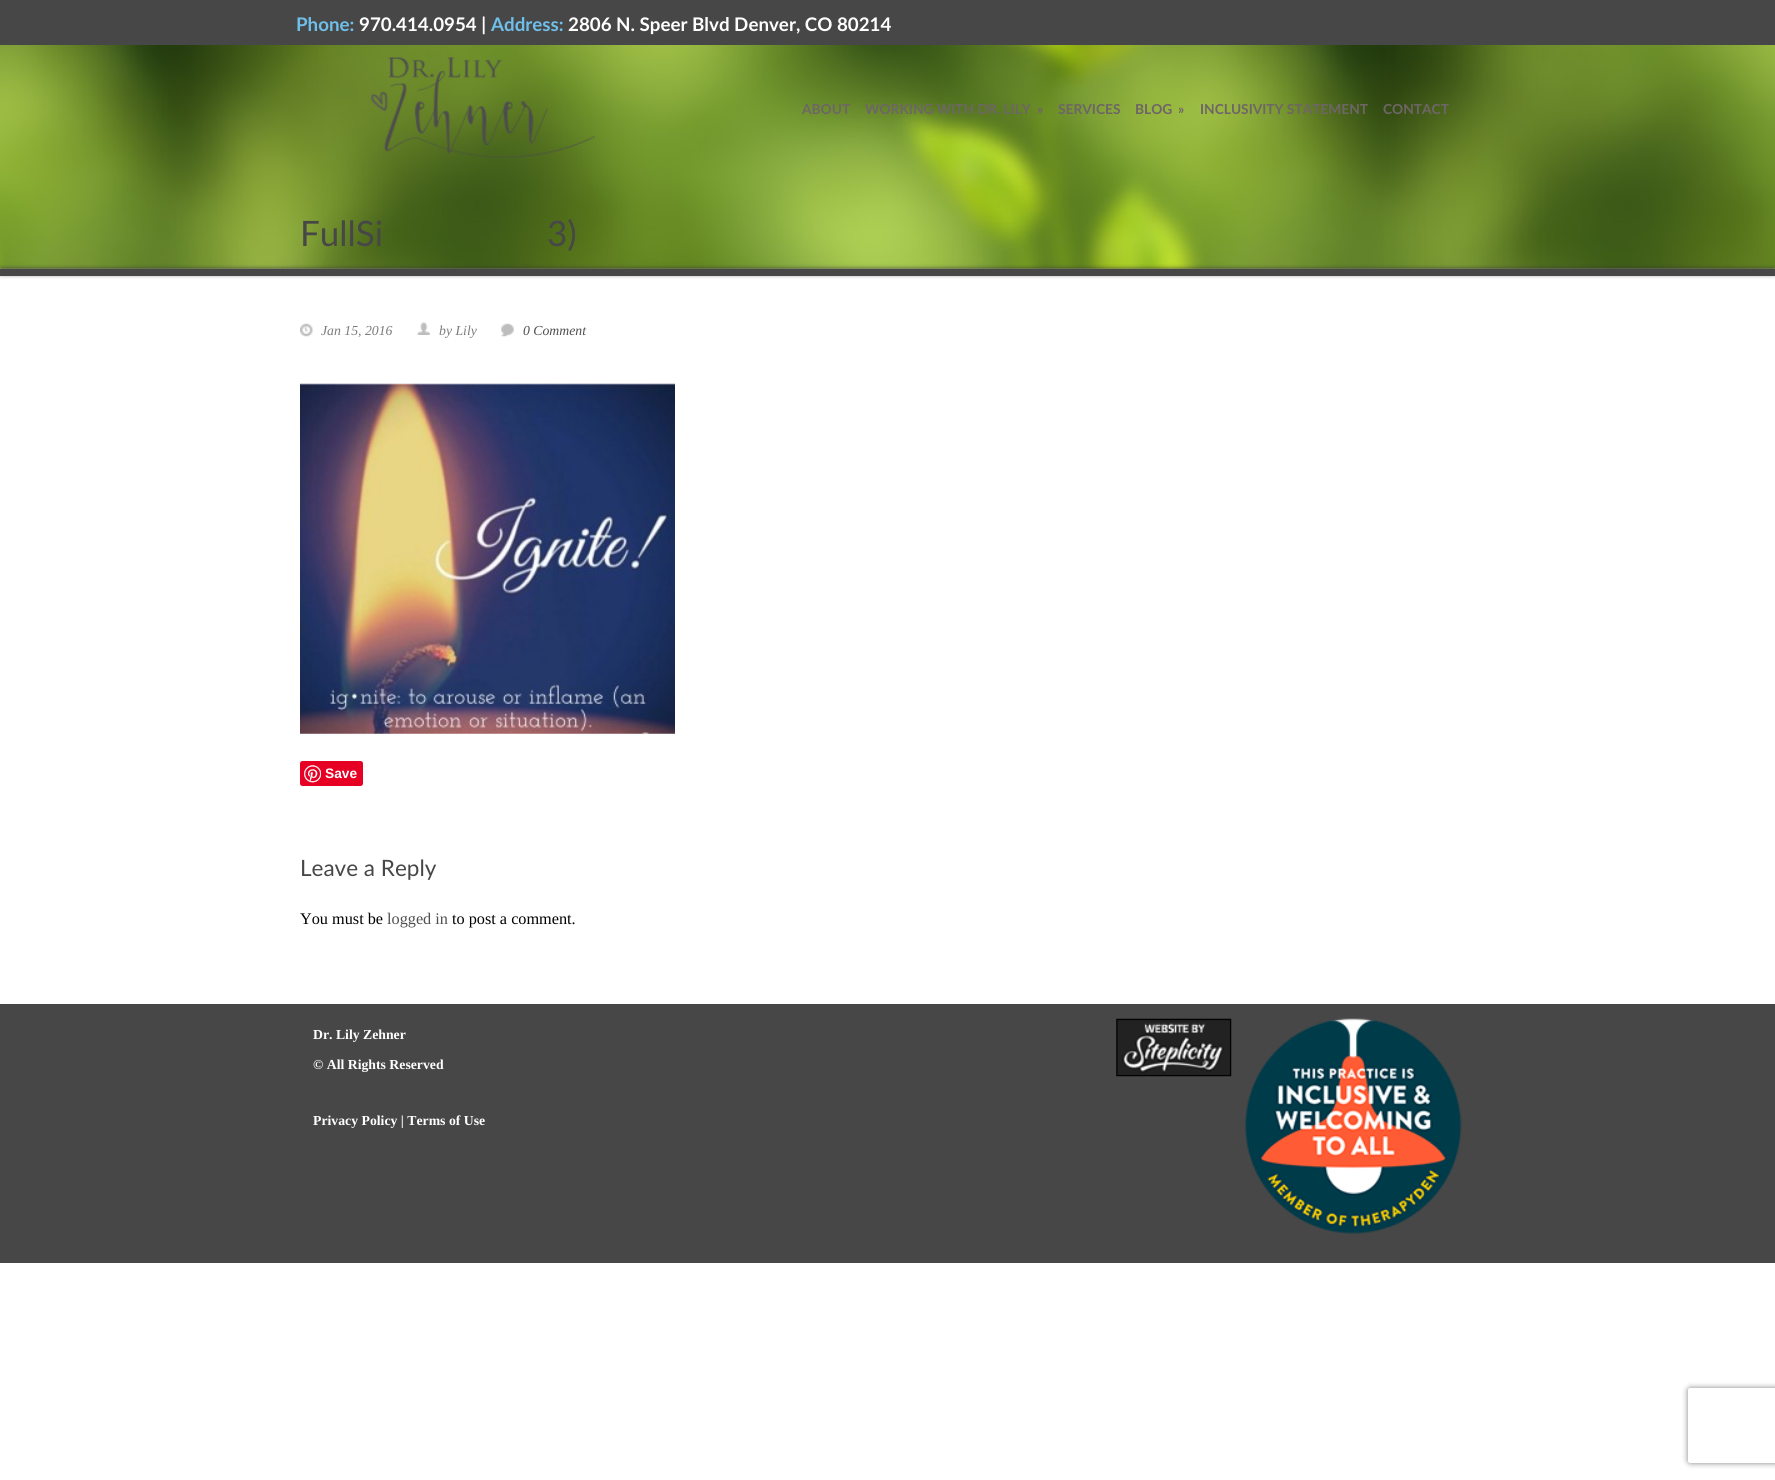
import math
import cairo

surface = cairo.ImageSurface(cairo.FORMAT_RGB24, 1775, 1480)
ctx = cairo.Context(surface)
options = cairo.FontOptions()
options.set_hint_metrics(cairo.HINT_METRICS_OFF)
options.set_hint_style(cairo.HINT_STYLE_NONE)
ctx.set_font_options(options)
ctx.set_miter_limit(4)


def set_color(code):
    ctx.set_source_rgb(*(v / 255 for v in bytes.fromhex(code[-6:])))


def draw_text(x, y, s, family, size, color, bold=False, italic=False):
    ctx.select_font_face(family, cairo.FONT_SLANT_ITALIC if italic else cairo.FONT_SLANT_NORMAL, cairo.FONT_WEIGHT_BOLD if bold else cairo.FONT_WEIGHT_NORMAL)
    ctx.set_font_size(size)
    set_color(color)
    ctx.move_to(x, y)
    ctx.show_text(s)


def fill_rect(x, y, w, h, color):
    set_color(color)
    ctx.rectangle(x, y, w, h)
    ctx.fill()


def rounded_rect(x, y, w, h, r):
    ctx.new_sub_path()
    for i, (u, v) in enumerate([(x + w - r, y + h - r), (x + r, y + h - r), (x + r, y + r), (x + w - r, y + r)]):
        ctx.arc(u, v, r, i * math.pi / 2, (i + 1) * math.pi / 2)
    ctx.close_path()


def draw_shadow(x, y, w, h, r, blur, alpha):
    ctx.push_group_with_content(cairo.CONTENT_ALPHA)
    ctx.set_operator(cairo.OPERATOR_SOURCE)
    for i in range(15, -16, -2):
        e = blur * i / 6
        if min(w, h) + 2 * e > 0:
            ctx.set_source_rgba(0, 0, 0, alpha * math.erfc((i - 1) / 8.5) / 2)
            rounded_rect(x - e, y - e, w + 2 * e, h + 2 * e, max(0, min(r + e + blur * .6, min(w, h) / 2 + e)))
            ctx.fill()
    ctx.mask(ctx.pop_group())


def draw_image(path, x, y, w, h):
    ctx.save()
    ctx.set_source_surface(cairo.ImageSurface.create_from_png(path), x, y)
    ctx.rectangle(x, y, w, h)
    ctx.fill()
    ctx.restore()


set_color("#ffffff")
ctx.paint()
fill_rect(0, 0, 1775, 45, "#474747")
draw_text(296, 31, "Phone:", "Lato", 18.75, "#6fbfea", bold=True)
draw_text(359, 31, "970.414.0954 |", "Lato", 18.75, "#ffffff", bold=True)
draw_text(491, 31, "Address:", "Lato", 18.75, "#6fbfea", bold=True)
draw_text(568, 31, "2806 N. Speer Blvd Denver, CO 80214", "Lato", 18.75, "#ffffff", bold=True)
draw_image("assets/img1.png", 0, 45, 1775, 224)
draw_image("assets/img2.png", 371, 57, 224, 101)
draw_text(802, 114, "ABOUT", "Lato", 13.75, "#6e6567", bold=True)
draw_text(865, 114, "WORKING WITH DR. LILY", "Lato", 13.75, "#6e6567", bold=True)
draw_text(1037, 114, "»", "Lato", 13.75, "#6e6567", bold=True)
draw_text(1058, 114, "SERVICES", "Lato", 13.75, "#6e6567", bold=True)
draw_text(1135, 114, "BLOG", "Lato", 13.75, "#6e6567", bold=True)
draw_text(1178, 114, "»", "Lato", 13.75, "#6e6567", bold=True)
draw_text(1200, 114, "INCLUSIVITY STATEMENT", "Lato", 13.75, "#6e6567", bold=True)
draw_text(1383, 114, "CONTACT", "Lato", 13.75, "#6e6567", bold=True)
draw_text(300, 246, "FullSi", "Lato", 35, "#474747")
draw_text(547, 246, "3)", "Lato", 35, "#474747")
set_color("#333333")
draw_shadow(1, 269, 1773, 5, 0, 2.5, 1)
fill_rect(0, 269, 1775, 7, "#474747")
draw_image("assets/img3.png", 300, 323, 13, 14)
draw_text(321, 335, "Jan 15, 2016", "Liberation Serif", 13.75, "#7b7b7b", italic=True)
draw_image("assets/img4.png", 417, 322, 13, 13)
draw_text(439, 335, "by Lily", "Liberation Serif", 13.75, "#7b7b7b", italic=True)
draw_image("assets/img5.png", 501, 323, 13, 14)
draw_text(523, 335, "0 Comment", "Liberation Serif", 13.75, "#4f4f4f", italic=True)
draw_image("assets/img6.png", 300, 383, 375, 351)
set_color("#e60023")
rounded_rect(300, 761, 63, 25, 2.5)
ctx.fill()
draw_image("assets/img7.png", 304, 765, 17, 18)
draw_text(325, 778, "Save", "Liberation Sans", 13.75, "#ffffff", bold=True)
draw_text(300, 876, "Leave a Reply", "Lato", 22.5, "#474747")
draw_text(300, 924, "You must be", "Liberation Serif", 16.25, "#000000")
draw_text(387, 924, "logged in", "Liberation Serif", 16.25, "#4f4f4f")
draw_text(452, 924, "to post a comment.", "Liberation Serif", 16.25, "#000000")
fill_rect(0, 1004, 1775, 259, "#474747")
draw_text(313, 1039, "Dr. Lily Zehner", "Liberation Serif", 13.75, "#ffffff", bold=True)
draw_text(313, 1069, "© All Rights Reserved", "Liberation Serif", 13.75, "#ffffff", bold=True)
draw_text(313, 1125, "Privacy Policy | Terms of Use", "Liberation Serif", 13.75, "#ffffff", bold=True)
draw_image("assets/img8.png", 1116, 1018, 116, 59)
draw_image("assets/img9.png", 1245, 1018, 217, 216)
ctx.save()
ctx.set_fill_rule(cairo.FILL_RULE_EVEN_ODD)
ctx.new_path()
ctx.move_to(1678, 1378)
ctx.line_to(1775, 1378)
ctx.line_to(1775, 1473)
ctx.line_to(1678, 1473)
ctx.close_path()
ctx.move_to(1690.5, 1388)
ctx.line_to(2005.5, 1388)
ctx.curve_to(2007, 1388, 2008, 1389, 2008, 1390.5)
ctx.line_to(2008, 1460.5)
ctx.curve_to(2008, 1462, 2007, 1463, 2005.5, 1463)
ctx.line_to(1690.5, 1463)
ctx.curve_to(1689, 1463, 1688, 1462, 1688, 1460.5)
ctx.line_to(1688, 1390.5)
ctx.curve_to(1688, 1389, 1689, 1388, 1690.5, 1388)
ctx.close_path()
ctx.clip()
set_color("#808080")
draw_shadow(1688, 1388, 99, 75, 2.5, 3, 1)
ctx.restore()
surface.write_to_png("output.png")
